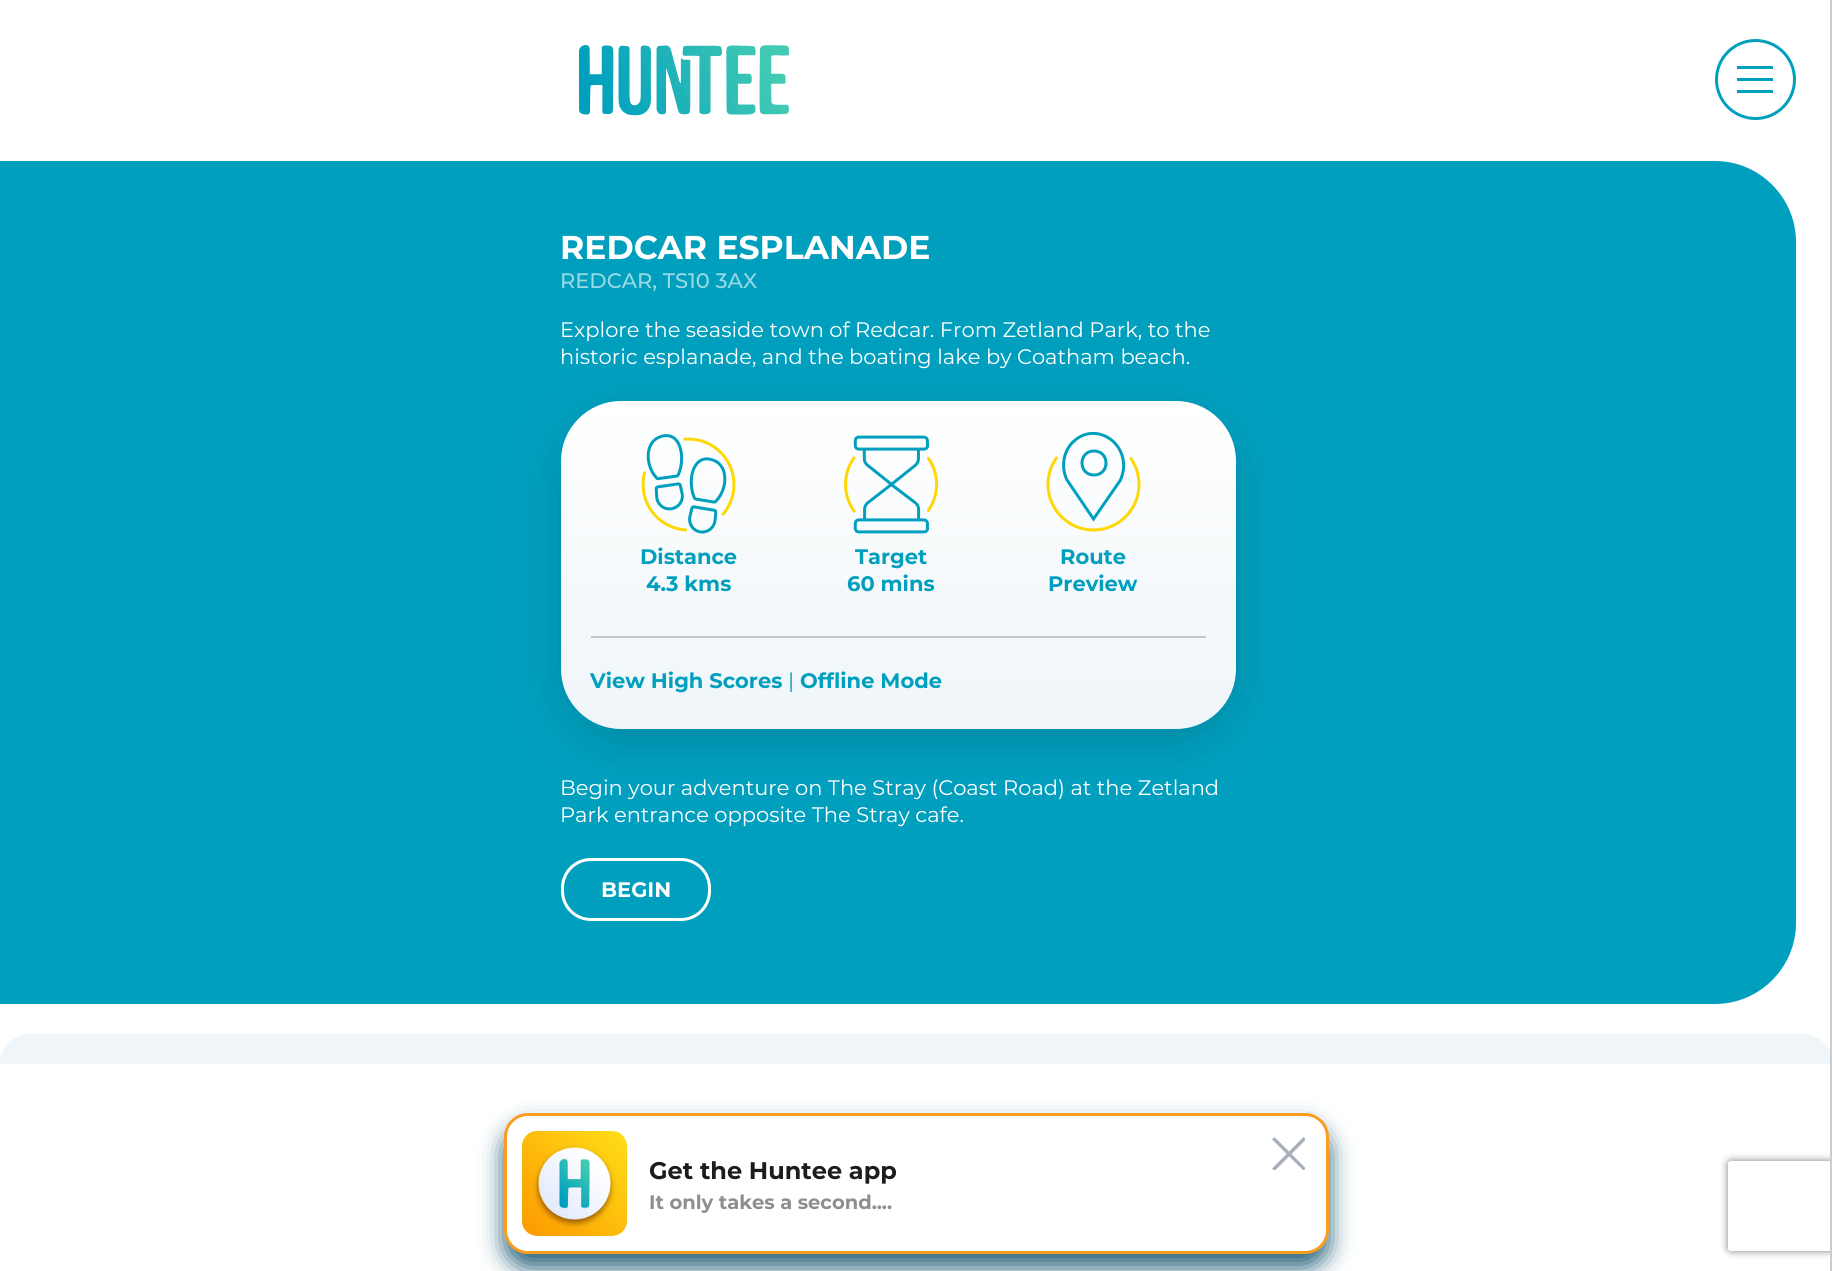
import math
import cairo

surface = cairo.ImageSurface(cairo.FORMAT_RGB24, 1832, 1271)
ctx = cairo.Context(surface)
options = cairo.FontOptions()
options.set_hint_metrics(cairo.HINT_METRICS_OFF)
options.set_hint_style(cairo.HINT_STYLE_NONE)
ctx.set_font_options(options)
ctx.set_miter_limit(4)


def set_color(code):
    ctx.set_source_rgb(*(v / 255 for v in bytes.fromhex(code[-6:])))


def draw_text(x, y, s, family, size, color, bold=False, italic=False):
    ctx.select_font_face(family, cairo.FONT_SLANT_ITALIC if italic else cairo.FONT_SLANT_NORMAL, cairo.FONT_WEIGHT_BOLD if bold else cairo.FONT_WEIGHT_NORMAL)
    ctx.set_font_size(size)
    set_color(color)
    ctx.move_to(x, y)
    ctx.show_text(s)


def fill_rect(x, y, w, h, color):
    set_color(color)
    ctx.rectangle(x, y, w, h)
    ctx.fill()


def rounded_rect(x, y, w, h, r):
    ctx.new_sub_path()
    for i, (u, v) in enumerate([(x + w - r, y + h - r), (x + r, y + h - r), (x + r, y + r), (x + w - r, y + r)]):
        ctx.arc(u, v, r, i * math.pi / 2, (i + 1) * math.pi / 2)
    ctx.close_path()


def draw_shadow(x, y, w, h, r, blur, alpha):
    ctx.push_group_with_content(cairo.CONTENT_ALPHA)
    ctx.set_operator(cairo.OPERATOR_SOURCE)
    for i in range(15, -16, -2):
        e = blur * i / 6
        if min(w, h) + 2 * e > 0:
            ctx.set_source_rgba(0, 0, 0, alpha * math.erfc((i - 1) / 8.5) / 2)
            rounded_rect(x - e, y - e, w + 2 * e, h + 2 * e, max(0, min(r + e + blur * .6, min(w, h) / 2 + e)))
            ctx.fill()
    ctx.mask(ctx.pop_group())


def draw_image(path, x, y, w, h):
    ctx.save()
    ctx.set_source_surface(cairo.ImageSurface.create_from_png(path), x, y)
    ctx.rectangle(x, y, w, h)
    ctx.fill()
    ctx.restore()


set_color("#ffffff")
ctx.paint()
ctx.arc(1755.5, 79.5, 39, 0, 2 * math.pi)
set_color("#019fbe")
ctx.set_line_width(3)
ctx.stroke()
fill_rect(1737, 66, 36, 3, "#019fbe")
fill_rect(1737, 78, 36, 3, "#019fbe")
fill_rect(1737, 90, 36, 3, "#019fbe")
set_color("#eff5f9")
ctx.new_path()
ctx.move_to(30, 1034)
ctx.line_to(1803, 1034)
ctx.curve_to(1819.5, 1034, 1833, 1047.5, 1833, 1064)
ctx.line_to(0, 1064)
ctx.curve_to(0, 1047.5, 13.5, 1034, 30, 1034)
ctx.close_path()
ctx.fill()
ctx.save()
ctx.set_fill_rule(cairo.FILL_RULE_EVEN_ODD)
ctx.new_path()
ctx.move_to(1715, 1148)
ctx.line_to(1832, 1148)
ctx.line_to(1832, 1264)
ctx.line_to(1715, 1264)
ctx.close_path()
ctx.move_to(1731, 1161)
ctx.line_to(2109, 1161)
ctx.curve_to(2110.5, 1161, 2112, 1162.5, 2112, 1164)
ctx.line_to(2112, 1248)
ctx.curve_to(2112, 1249.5, 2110.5, 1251, 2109, 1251)
ctx.line_to(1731, 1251)
ctx.curve_to(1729.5, 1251, 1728, 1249.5, 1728, 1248)
ctx.line_to(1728, 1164)
ctx.curve_to(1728, 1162.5, 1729.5, 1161, 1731, 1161)
ctx.close_path()
ctx.clip()
set_color("#808080")
draw_shadow(1728, 1161, 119, 90, 3, 4, 1)
ctx.restore()
fill_rect(1830, 0, 2, 1271, "#cccccc")
draw_image("assets/img1.png", 579, 45, 210, 71)
set_color("#019fbe")
ctx.new_path()
ctx.move_to(0, 161)
ctx.line_to(1715, 161)
ctx.curve_to(1759.5, 161, 1796, 197.5, 1796, 242)
ctx.line_to(1796, 923)
ctx.curve_to(1796, 967.5, 1759.5, 1004, 1715, 1004)
ctx.line_to(0, 1004)
ctx.close_path()
ctx.fill()
draw_text(560, 259, "REDCAR ESPLANADE", "Montserrat", 33, "#ffffff", bold=True)
draw_text(560, 288, "REDCAR, TS10 3AX", "Montserrat Medium", 21, "#99d9e5")
draw_text(560, 337, "Explore the seaside town of Redcar. From Zetland Park, to the", "Montserrat", 21, "#ffffff")
draw_text(560, 364, "historic esplanade, and the boating lake by Coatham beach.", "Montserrat", 21, "#ffffff")
set_color("#000000")
draw_shadow(573, 428, 651, 304, 48, 30, 0.2)
gradient = cairo.LinearGradient(899, 729, 899, 401)
gradient.add_color_stop_rgba(0, 0.937, 0.961, 0.976, 1)
gradient.add_color_stop_rgba(1, 1, 1, 1, 1)
ctx.set_source(gradient)
rounded_rect(561, 401, 675, 328, 60)
ctx.fill()
draw_image("assets/img2.png", 641, 434, 95, 100)
draw_text(640, 564, "Distance", "Montserrat", 21, "#019fbe", bold=True)
draw_text(646, 591, "4.3 kms", "Montserrat", 21, "#019fbe", bold=True)
draw_image("assets/img3.png", 844, 435, 95, 99)
draw_text(855, 564, "Target", "Montserrat", 21, "#019fbe", bold=True)
draw_text(847, 591, "60 mins", "Montserrat", 21, "#019fbe", bold=True)
ctx.new_path()
ctx.move_to(1131, 458.5)
ctx.curve_to(1136, 466, 1139, 475, 1139, 484.5)
ctx.curve_to(1139, 509.5, 1118.5, 530, 1093.5, 530)
ctx.curve_to(1068.5, 530, 1048, 509.5, 1048, 484.5)
ctx.curve_to(1048, 474.5, 1051, 465.5, 1056.5, 458)
set_color("#ffd702")
ctx.set_line_cap(cairo.LINE_CAP_ROUND)
ctx.stroke()
ctx.new_path()
ctx.move_to(1094, 475)
ctx.curve_to(1110, 475, 1110, 451, 1094, 451)
ctx.curve_to(1078, 451, 1078, 475, 1094, 475)
set_color("#019fbe")
ctx.stroke()
ctx.save()
ctx.rectangle(1041, 432, 105, 105)
ctx.clip()
ctx.new_path()
ctx.move_to(1072.5, 442.5)
ctx.curve_to(1093, 421.5, 1126, 439.5, 1123.5, 469)
ctx.curve_to(1123, 472.5, 1122, 476.5, 1120.5, 480)
ctx.line_to(1093.5, 519)
ctx.line_to(1067, 480)
ctx.curve_to(1061, 468, 1063, 452, 1072.5, 442.5)
ctx.stroke()
ctx.restore()
draw_text(1060, 564, "Route", "Montserrat", 21, "#019fbe", bold=True)
draw_text(1048, 591, "Preview", "Montserrat", 21, "#019fbe", bold=True)
fill_rect(591, 636, 615, 2, "#c3c6c9")
draw_text(590, 688, "View High Scores", "Montserrat", 21, "#019fbe", bold=True)
draw_text(788, 688, "|", "Montserrat", 21, "#019fbe")
draw_text(800, 688, "Offline Mode", "Montserrat", 21, "#019fbe", bold=True)
draw_text(560, 795, "Begin your adventure on The Stray (Coast Road) at the Zetland", "Montserrat", 21, "#ffffff")
draw_text(560, 822, "Park entrance opposite The Stray cafe.", "Montserrat", 21, "#ffffff")
rounded_rect(562.5, 859.5, 147, 60, 28.5)
ctx.set_line_cap(cairo.LINE_CAP_BUTT)
ctx.stroke()
draw_text(601, 897, "BEGIN", "Montserrat", 21, "#ffffff", bold=True)
set_color("#004660")
draw_shadow(504, 1127, 825, 141, 24, 12, 0.85)
set_color("#ffffff")
rounded_rect(505.5, 1114.5, 822, 138, 22.5)
ctx.fill_preserve()
set_color("#f99d22")
ctx.stroke()
draw_image("assets/img4.png", 522, 1131, 105, 105)
ctx.save()
ctx.rectangle(1272, 1137, 33, 33)
ctx.clip()
set_color("#a7b0bb")
ctx.new_path()
ctx.move_to(1272, 1168.5)
ctx.line_to(1303.5, 1137)
ctx.line_to(1306, 1139.5)
ctx.line_to(1274.5, 1171)
ctx.close_path()
ctx.fill()
ctx.new_path()
ctx.move_to(1272, 1139.5)
ctx.line_to(1274.5, 1137)
ctx.line_to(1306, 1168.5)
ctx.line_to(1303.5, 1170.5)
ctx.close_path()
ctx.fill()
ctx.restore()
draw_text(649, 1179, "Get the Huntee app", "Montserrat", 24, "#1a1c1e", bold=True)
draw_text(649, 1209, "It only takes a second....", "Montserrat", 19.5, "#8d8e8f", bold=True)
surface.write_to_png("output.png")
